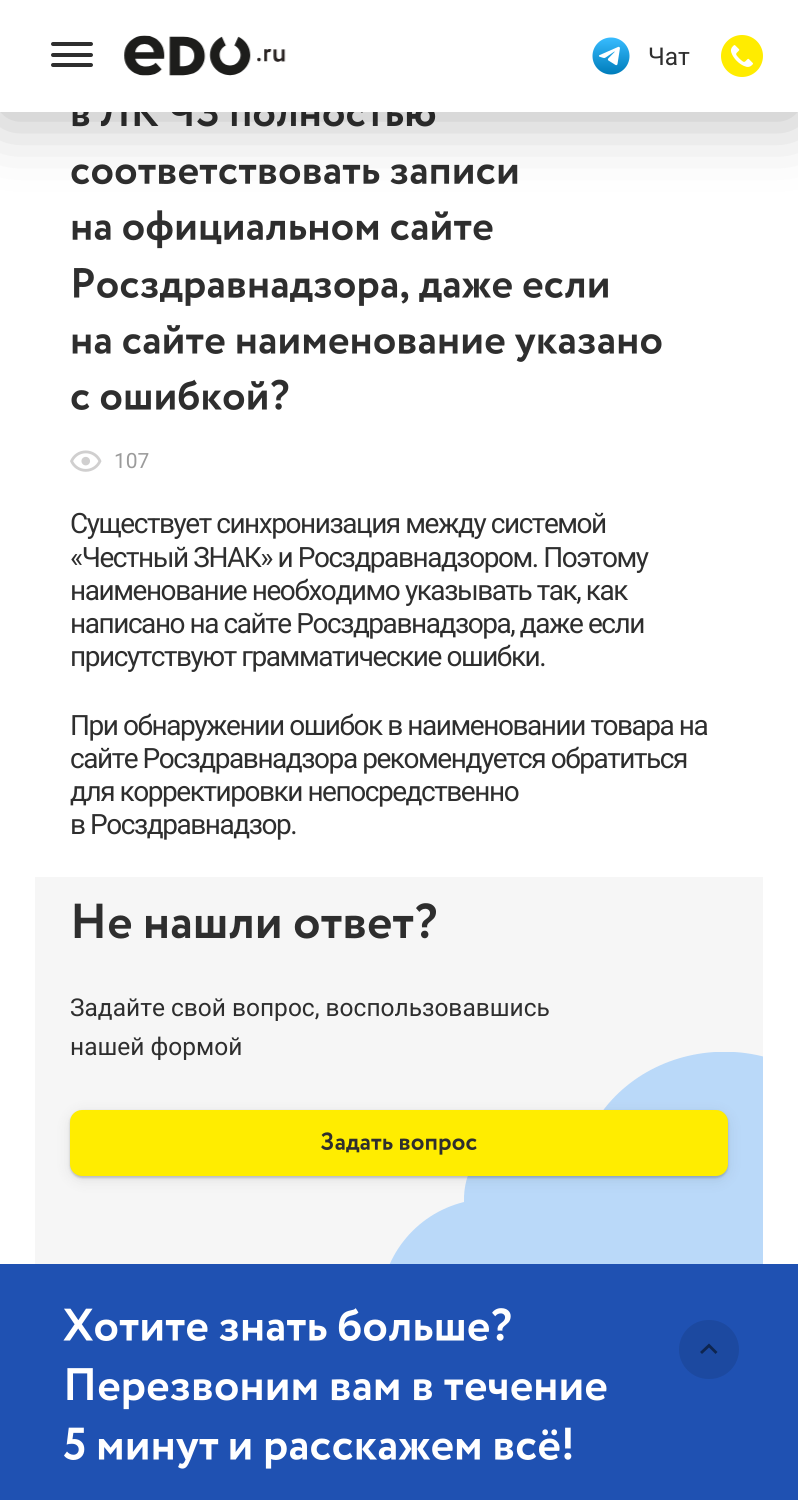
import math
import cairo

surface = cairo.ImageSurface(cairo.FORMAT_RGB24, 798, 1500)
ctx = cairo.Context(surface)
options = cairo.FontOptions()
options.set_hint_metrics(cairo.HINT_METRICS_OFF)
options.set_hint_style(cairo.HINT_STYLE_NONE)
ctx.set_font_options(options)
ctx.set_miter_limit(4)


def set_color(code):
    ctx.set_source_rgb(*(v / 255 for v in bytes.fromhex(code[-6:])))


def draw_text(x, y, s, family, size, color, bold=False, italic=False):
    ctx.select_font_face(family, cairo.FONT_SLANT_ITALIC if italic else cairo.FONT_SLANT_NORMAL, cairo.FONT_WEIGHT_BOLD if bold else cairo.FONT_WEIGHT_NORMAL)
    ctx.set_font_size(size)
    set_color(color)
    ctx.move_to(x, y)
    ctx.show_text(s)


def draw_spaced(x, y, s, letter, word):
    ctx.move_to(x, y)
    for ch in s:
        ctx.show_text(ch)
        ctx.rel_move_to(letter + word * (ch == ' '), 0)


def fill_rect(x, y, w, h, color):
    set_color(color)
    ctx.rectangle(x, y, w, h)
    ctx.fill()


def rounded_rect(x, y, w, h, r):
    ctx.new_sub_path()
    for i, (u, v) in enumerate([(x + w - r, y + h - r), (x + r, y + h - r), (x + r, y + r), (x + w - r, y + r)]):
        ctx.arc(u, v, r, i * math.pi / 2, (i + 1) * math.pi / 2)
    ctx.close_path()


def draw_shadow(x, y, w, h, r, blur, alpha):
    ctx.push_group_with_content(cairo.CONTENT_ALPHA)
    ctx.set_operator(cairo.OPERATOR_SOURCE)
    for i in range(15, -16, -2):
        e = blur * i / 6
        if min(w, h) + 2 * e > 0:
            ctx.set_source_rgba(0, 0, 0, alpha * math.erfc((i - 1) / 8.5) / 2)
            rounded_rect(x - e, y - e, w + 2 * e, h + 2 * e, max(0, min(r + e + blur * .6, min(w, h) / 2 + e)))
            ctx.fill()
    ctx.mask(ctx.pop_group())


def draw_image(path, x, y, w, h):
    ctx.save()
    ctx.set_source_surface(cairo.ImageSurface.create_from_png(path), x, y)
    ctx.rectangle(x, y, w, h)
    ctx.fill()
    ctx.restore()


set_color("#ffffff")
ctx.paint()
draw_image("assets/img4.png", 72, 112, 364, 15)
draw_image("assets/img5.png", 71, 164, 447, 21)
draw_image("assets/img6.png", 72, 210, 421, 39)
set_color("#000000")
draw_shadow(0, 4, 798, 112, 0, 35, 0.3)
fill_rect(0, 0, 798, 112, "#ffffff")
set_color("#2e2e2e")
rounded_rect(51, 42, 42, 4, 2)
ctx.fill()
rounded_rect(51, 53, 42, 4, 2)
ctx.fill()
rounded_rect(51, 63, 42, 4, 2)
ctx.fill()
draw_image("assets/img1.png", 124, 35, 162, 41)
draw_image("assets/img2.png", 592, 37, 38, 38)
draw_text(648, 65, "Чат", "Roboto", 24.5, "#2e2e2e")
draw_image("assets/img3.png", 721, 35, 42, 42)
draw_image("assets/img7.png", 74, 268, 534, 38)
draw_image("assets/img8.png", 72, 325, 590, 37)
draw_image("assets/img9.png", 71, 379, 218, 31)
draw_image("assets/img10.png", 70, 450, 32, 22)
draw_text(114, 468, "107", "Roboto", 21, "#9b9b9b")
ctx.set_font_size(28)
set_color("#2e2e2e")
draw_spaced(70, 533, "Существует синхронизация между системой", -1.45, 0)
draw_spaced(70, 567, "«Честный ЗНАК» и Росздравнадзором. Поэтому", -1.45, 0)
draw_spaced(70, 600, "наименование необходимо указывать так, как", -1.45, 0)
draw_spaced(70, 633, "написано на сайте Росздравнадзора, даже если", -1.45, 0)
draw_spaced(70, 666, "присутствуют грамматические ошибки.", -1.45, 0)
draw_spaced(70, 735, "При обнаружении ошибок в наименовании товара на", -1.45, 0)
draw_spaced(70, 768, "сайте Росздравнадзора рекомендуется обратиться", -1.45, 0)
draw_spaced(70, 801, "для корректировки непосредственно", -1.45, 0)
draw_spaced(70, 834, "в Росздравнадзор.", -1.45, 0)
fill_rect(35, 877, 728, 387, "#f6f6f6")
ctx.save()
ctx.rectangle(389, 1052, 374, 212)
ctx.clip()
set_color("#bad9f9")
ctx.set_fill_rule(cairo.FILL_RULE_EVEN_ODD)
ctx.new_path()
ctx.move_to(488, 1423)
ctx.line_to(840, 1423)
ctx.curve_to(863, 1423, 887, 1417, 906, 1404)
ctx.curve_to(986, 1350, 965, 1227, 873, 1202)
ctx.curve_to(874, 1171, 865, 1141, 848, 1115)
ctx.curve_to(781, 1019, 628, 1035, 584, 1144)
ctx.curve_to(537, 1104, 462, 1138, 464, 1202)
ctx.curve_to(415, 1214, 380, 1258, 380, 1310)
ctx.curve_to(380, 1371, 428, 1421, 488, 1423)
ctx.close_path()
ctx.fill()
ctx.restore()
draw_image("assets/img11.png", 74, 903, 362, 36)
draw_text(70, 1016, "Задайте свой вопрос, воспользовавшись", "Roboto", 24.5, "#2e2e2e")
draw_text(70, 1055, "нашей формой", "Roboto", 24.5, "#2e2e2e")
set_color("#000000")
draw_shadow(70, 1113, 658, 67, 12, 7, 0.09)
set_color("#161d25")
draw_shadow(70, 1111, 658, 67, 12, 1, 0.2)
set_color("#ffed00")
rounded_rect(70, 1110, 658, 66, 12)
ctx.fill()
draw_image("assets/img12.png", 321, 1132, 156, 23)
fill_rect(0, 1264, 798, 236, "#1f51b2")
draw_image("assets/img13.png", 63, 1308, 448, 33)
draw_image("assets/img14.png", 67, 1368, 540, 42)
draw_image("assets/img15.png", 64, 1427, 155, 42)
draw_image("assets/img16.png", 230, 1427, 342, 42)
set_color("#1c49a0")
rounded_rect(679, 1320, 60, 59, 29.5)
ctx.fill()
set_color("#0e2550")
ctx.new_path()
ctx.move_to(702, 1354)
ctx.line_to(700, 1352)
ctx.line_to(709, 1343.5)
ctx.line_to(717.5, 1352)
ctx.line_to(715.5, 1354)
ctx.line_to(709, 1347.5)
ctx.close_path()
ctx.fill()
surface.write_to_png("output.png")
